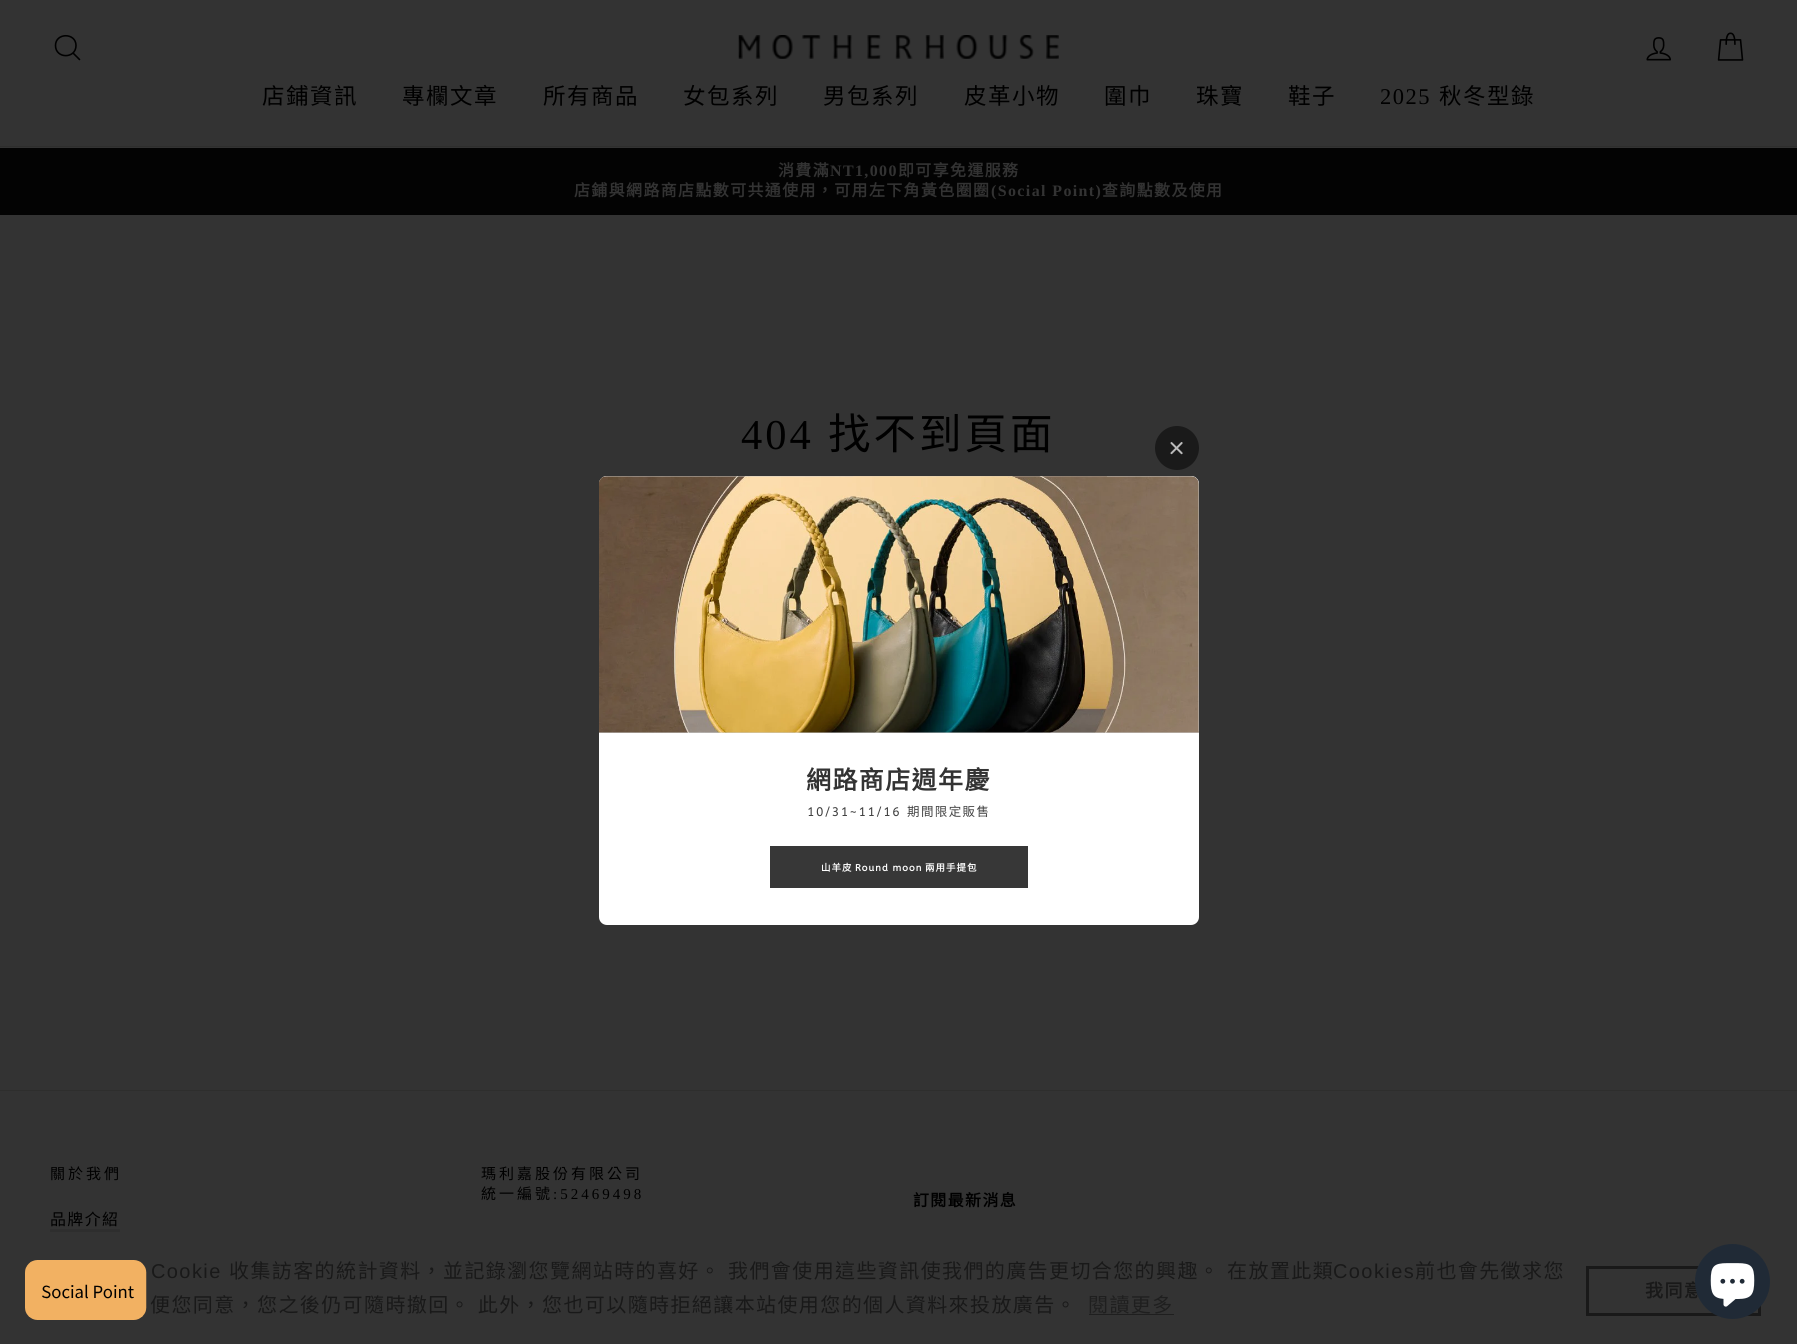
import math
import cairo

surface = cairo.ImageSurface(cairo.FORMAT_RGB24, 1797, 1344)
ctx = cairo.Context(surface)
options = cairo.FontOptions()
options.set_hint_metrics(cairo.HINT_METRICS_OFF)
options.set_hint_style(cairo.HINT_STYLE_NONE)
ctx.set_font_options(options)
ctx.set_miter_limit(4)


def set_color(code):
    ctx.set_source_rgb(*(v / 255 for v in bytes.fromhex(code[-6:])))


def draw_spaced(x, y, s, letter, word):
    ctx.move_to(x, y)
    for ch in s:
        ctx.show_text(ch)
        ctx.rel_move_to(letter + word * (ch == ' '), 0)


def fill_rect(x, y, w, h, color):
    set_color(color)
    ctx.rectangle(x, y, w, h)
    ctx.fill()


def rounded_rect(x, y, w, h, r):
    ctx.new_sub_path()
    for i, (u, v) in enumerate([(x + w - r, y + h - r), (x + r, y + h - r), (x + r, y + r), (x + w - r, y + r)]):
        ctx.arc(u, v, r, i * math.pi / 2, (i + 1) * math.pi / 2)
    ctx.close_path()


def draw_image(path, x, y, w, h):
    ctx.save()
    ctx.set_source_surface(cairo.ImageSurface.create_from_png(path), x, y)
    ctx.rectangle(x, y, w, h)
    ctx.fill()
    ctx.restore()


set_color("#333333")
ctx.paint()
fill_rect(0, 146, 1797, 1, "#2e2e2d")
ctx.new_path()
ctx.move_to(76, 45.5)
ctx.curve_to(76, 59, 55.5, 59, 55.5, 45.5)
ctx.curve_to(55.5, 32.5, 76, 32.5, 76, 45.5)
ctx.close_path()
ctx.move_to(79.5, 59.5)
ctx.line_to(73, 53)
set_color("#000000")
ctx.set_line_width(1.6)
ctx.set_line_cap(cairo.LINE_CAP_ROUND)
ctx.set_line_join(cairo.LINE_JOIN_ROUND)
ctx.stroke()
draw_image("assets/img1.png", 738, 35, 321, 24)
draw_image("assets/img2.png", 1646, 37, 25, 24)
draw_image("assets/img3.png", 1717, 32, 27, 29)
ctx.select_font_face("Noto Sans CJK TC")
ctx.set_font_size(22.5)
draw_spaced(262, 104, "店鋪資訊", 1.5, 0)
draw_spaced(402, 104, "專欄文章", 1.5, 0)
draw_spaced(543, 104, "所有商品", 1.5, 0)
draw_spaced(683, 104, "女包系列", 1.5, 0)
draw_spaced(823, 104, "男包系列", 1.5, 0)
draw_spaced(964, 104, "皮革小物", 1.5, 0)
draw_spaced(1104, 104, "圍巾", 1.5, 0)
draw_spaced(1196, 104, "珠寶", 1.5, 0)
draw_spaced(1288, 104, "鞋子", 1.5, 0)
ctx.select_font_face("Liberation Serif")
draw_spaced(1380, 104, "2025", 1.5, 0)
ctx.select_font_face("Noto Sans CJK TC")
draw_spaced(1439, 104, "秋冬型錄", 1.5, 0)
fill_rect(0, 148, 1797, 67, "#030303")
ctx.select_font_face("Noto Sans CJK TC", cairo.FONT_SLANT_NORMAL, cairo.FONT_WEIGHT_BOLD)
ctx.set_font_size(15.95)
set_color("#333333")
draw_spaced(778, 176, "消費滿", 1.4, 0)
ctx.select_font_face("Liberation Serif", cairo.FONT_SLANT_NORMAL, cairo.FONT_WEIGHT_BOLD)
draw_spaced(830, 176, "NT1,000", 1.4, 0)
ctx.select_font_face("Noto Sans CJK TC", cairo.FONT_SLANT_NORMAL, cairo.FONT_WEIGHT_BOLD)
draw_spaced(898, 176, "即可享免運服務", 1.4, 0)
draw_spaced(574, 196, "店鋪與網路商店點數可共通使用，可用左下角黃色圈圈", 1.4, 0)
ctx.select_font_face("Liberation Serif", cairo.FONT_SLANT_NORMAL, cairo.FONT_WEIGHT_BOLD)
draw_spaced(991, 196, "(Social Point)", 1.4, 0)
ctx.select_font_face("Noto Sans CJK TC", cairo.FONT_SLANT_NORMAL, cairo.FONT_WEIGHT_BOLD)
draw_spaced(1102, 196, "查詢點數及使用", 1.4, 0)
ctx.select_font_face("Liberation Serif")
ctx.set_font_size(42.5)
set_color("#000000")
draw_spaced(741, 449, "404", 3, 0)
ctx.select_font_face("Noto Sans CJK TC")
draw_spaced(828, 449, "找不到頁面", 3, 0)
fill_rect(0, 1090, 1797, 1, "#2e2e2d")
ctx.set_font_size(15)
set_color("#000000")
draw_spaced(50, 1179, "關於我們", 3, 0)
ctx.set_font_size(15.95)
draw_spaced(50, 1225, "品牌介紹", 1.4, 0)
fill_rect(50, 1229, 70, 3, "#2e2e2e")
ctx.set_font_size(15)
set_color("#000000")
draw_spaced(481, 1179, "瑪利嘉股份有限公司", 3, 0)
draw_spaced(481, 1199, "統一編號", 3, 0)
ctx.select_font_face("Liberation Serif")
draw_spaced(553, 1199, ":52469498", 3, 0)
ctx.select_font_face("Noto Sans CJK TC", cairo.FONT_SLANT_NORMAL, cairo.FONT_WEIGHT_BOLD)
ctx.set_font_size(15.95)
draw_spaced(913, 1206, "訂閱最新消息", 1.4, 0)
set_color("#1a1a1a")
ctx.new_path()
ctx.arc(1177, 448, 22, 0, 2 * math.pi)
ctx.fill()
draw_image("assets/img4.png", 1170, 442, 13, 13)
set_color("#ffffff")
rounded_rect(599, 476, 600, 449, 8)
ctx.fill()
set_color("#cccccc")
ctx.new_path()
ctx.move_to(607, 476)
ctx.line_to(1191, 476)
ctx.curve_to(1195.5, 476, 1199, 479.5, 1199, 484)
ctx.line_to(1199, 733)
ctx.line_to(599, 733)
ctx.line_to(599, 484)
ctx.curve_to(599, 479.5, 602.5, 476, 607, 476)
ctx.close_path()
ctx.fill()
draw_image("assets/img5.png", 599, 476, 600, 257)
ctx.set_font_size(25)
set_color("#333333")
draw_spaced(806, 789, "網路商店週年慶", 1.4, 0)
ctx.select_font_face("ABeeZee")
ctx.set_font_size(12.5)
set_color("#424242")
draw_spaced(807, 816, "10/31~11/16", 1.4, 0)
ctx.select_font_face("Noto Sans CJK TC")
draw_spaced(907, 816, "期間限定販售", 1.4, 0)
fill_rect(770, 846, 258, 42, "#373737")
ctx.select_font_face("Noto Sans CJK TC", cairo.FONT_SLANT_NORMAL, cairo.FONT_WEIGHT_BOLD)
ctx.set_font_size(9.5)
set_color("#ffffff")
draw_spaced(821, 871, "山羊皮", 1, 0)
ctx.select_font_face("ABeeZee", cairo.FONT_SLANT_NORMAL, cairo.FONT_WEIGHT_BOLD)
draw_spaced(855, 871, "Round moon", 1, 0)
ctx.select_font_face("Noto Sans CJK TC", cairo.FONT_SLANT_NORMAL, cairo.FONT_WEIGHT_BOLD)
draw_spaced(925, 871, "兩用手提包", 1, 0)
draw_image("assets/img6.png", 25, 1260, 122, 60)
ctx.select_font_face("Liberation Sans")
ctx.set_font_size(20)
set_color("#191919")
draw_spaced(151, 1278, "Cookie", 1.4, 0)
ctx.select_font_face("Noto Sans CJK TC")
draw_spaced(229, 1278, "收集訪客的統計資料，並記錄瀏您覽網站時的喜好。 我們會使用這些資訊使我們的廣告更切合您的興趣。 在放置此類", 1.4, 1)
ctx.select_font_face("Liberation Sans")
draw_spaced(1333, 1278, "Cookies", 1.4, 0)
ctx.select_font_face("Noto Sans CJK TC")
draw_spaced(1415, 1278, "前也會先徵求您", 1.4, 0)
draw_spaced(150, 1312, "便您同意，您之後仍可隨時撤回。 此外，您也可以隨時拒絕讓本站使用您的個人資料來投放廣告。", 1.4, 1)
set_color("#1f1f1f")
draw_spaced(1088, 1312, "閱讀更多", 1.4, 0)
fill_rect(1089, 1314, 85, 1, "#1f1f1f")
ctx.rectangle(1587.5, 1267.5, 172, 47)
set_color("#191919")
ctx.set_line_width(3)
ctx.set_line_cap(cairo.LINE_CAP_BUTT)
ctx.set_line_join(cairo.LINE_JOIN_MITER)
ctx.stroke()
ctx.select_font_face("Noto Sans CJK TC", cairo.FONT_SLANT_NORMAL, cairo.FONT_WEIGHT_BOLD)
ctx.set_font_size(18)
draw_spaced(1645, 1297, "我同意", 1.4, 0)
set_color("#202a36")
ctx.new_path()
ctx.arc(1732.5, 1281.5, 37.5, 0, 2 * math.pi)
ctx.fill()
draw_image("assets/img7.png", 1710, 1263, 45, 44)
surface.write_to_png("output.png")
